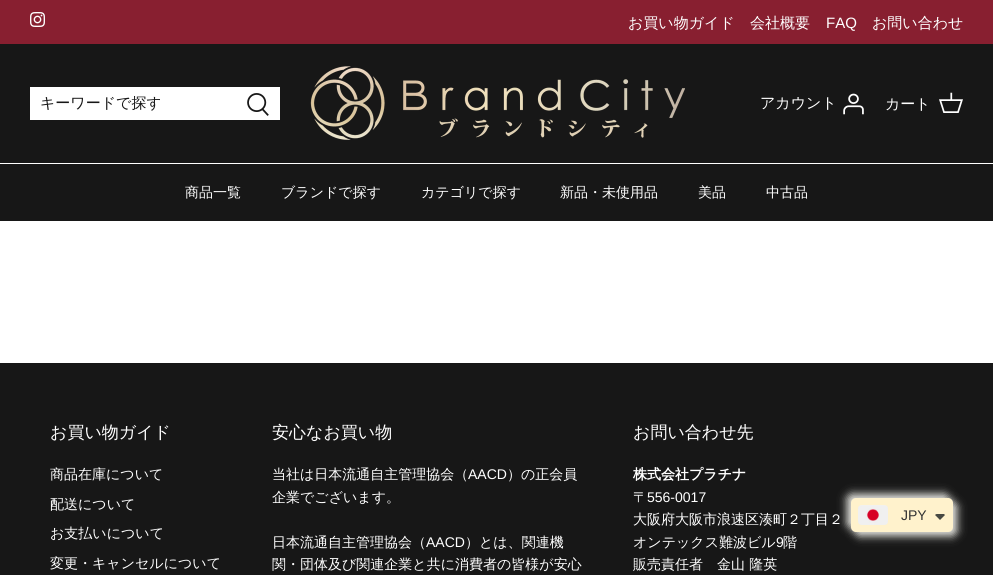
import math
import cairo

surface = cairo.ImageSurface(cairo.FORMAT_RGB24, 993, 575)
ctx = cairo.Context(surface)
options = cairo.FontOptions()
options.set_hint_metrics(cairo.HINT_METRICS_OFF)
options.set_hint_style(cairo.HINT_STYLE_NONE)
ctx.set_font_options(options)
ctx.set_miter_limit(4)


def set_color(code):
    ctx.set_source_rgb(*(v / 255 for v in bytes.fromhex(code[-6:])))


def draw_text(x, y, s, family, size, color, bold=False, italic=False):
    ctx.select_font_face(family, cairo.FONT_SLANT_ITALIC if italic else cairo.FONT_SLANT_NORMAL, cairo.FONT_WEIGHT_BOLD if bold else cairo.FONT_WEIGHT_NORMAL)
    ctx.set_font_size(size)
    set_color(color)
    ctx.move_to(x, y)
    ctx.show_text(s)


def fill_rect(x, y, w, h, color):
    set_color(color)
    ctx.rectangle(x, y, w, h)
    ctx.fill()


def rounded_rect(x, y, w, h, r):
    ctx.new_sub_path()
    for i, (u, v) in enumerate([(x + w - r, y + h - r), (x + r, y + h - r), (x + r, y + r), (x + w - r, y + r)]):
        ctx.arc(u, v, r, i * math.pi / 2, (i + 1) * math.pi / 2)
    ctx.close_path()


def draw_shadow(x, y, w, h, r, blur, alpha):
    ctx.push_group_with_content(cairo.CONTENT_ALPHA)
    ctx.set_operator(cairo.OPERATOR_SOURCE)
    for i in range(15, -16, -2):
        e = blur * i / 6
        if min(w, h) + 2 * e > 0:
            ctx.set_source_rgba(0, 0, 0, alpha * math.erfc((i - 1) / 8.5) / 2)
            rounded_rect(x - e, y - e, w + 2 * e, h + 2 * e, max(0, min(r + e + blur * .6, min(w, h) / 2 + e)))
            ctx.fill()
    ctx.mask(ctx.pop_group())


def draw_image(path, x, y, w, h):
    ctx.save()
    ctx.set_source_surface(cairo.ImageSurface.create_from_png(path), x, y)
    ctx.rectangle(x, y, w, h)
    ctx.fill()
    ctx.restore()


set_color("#ffffff")
ctx.paint()
fill_rect(0, 0, 993, 44, "#881f30")
draw_image("assets/img1.png", 30, 12, 15, 15)
draw_text(628, 28, "お買い物ガイド", "WenQuanYi Zen Hei Medium", 15, "#ffffff")
draw_text(750, 28, "会社概要", "WenQuanYi Zen Hei Medium", 15, "#ffffff")
draw_text(826, 28, "FAQ", "Arimo", 15, "#ffffff")
draw_text(872, 28, "お問い合わせ", "WenQuanYi Zen Hei Medium", 15, "#ffffff")
fill_rect(0, 44, 993, 119, "#171717")
fill_rect(30, 87, 250, 33, "#ffffff")
draw_text(40, 108, "キーワードで探す", "WenQuanYi Zen Hei Medium", 15, "#171717")
draw_image("assets/img2.png", 247, 93, 22, 23)
draw_image("assets/img3.png", 310, 66, 375, 74)
draw_text(760, 108, "アカウント", "WenQuanYi Zen Hei Medium", 15, "#ffffff")
draw_image("assets/img4.png", 843, 93, 21, 22)
draw_text(885, 109, "カート", "WenQuanYi Zen Hei Medium", 15, "#ffffff")
draw_image("assets/img5.png", 939, 92, 24, 21)
fill_rect(0, 164, 993, 57, "#171717")
draw_text(185, 197, "商品一覧", "WenQuanYi Zen Hei Medium", 14, "#ffffff")
draw_text(281, 197, "ブランドで探す", "WenQuanYi Zen Hei Medium", 14, "#ffffff")
draw_text(421, 197, "カテゴリで探す", "WenQuanYi Zen Hei Medium", 14, "#ffffff")
draw_text(560, 197, "新品・未使用品", "WenQuanYi Zen Hei Medium", 14, "#ffffff")
draw_text(698, 197, "美品", "WenQuanYi Zen Hei Medium", 14, "#ffffff")
draw_text(766, 197, "中古品", "WenQuanYi Zen Hei Medium", 14, "#ffffff")
fill_rect(0, 363, 993, 212, "#171717")
draw_text(50, 438, "お買い物ガイド", "WenQuanYi Zen Hei Medium", 17, "#ffffff")
draw_text(50, 479, "商品在庫について", "WenQuanYi Zen Hei Medium", 14, "#ffffff")
draw_text(50, 509, "配送について", "WenQuanYi Zen Hei Medium", 14, "#ffffff")
draw_text(50, 538, "お支払いについて", "WenQuanYi Zen Hei Medium", 14, "#ffffff")
draw_text(50, 568, "変更・キャンセルについて", "WenQuanYi Zen Hei Medium", 14, "#ffffff")
draw_text(272, 438, "安心なお買い物", "WenQuanYi Zen Hei Medium", 17, "#ffffff")
draw_text(272, 479, "当社は日本流通自主管理協会（", "WenQuanYi Zen Hei Medium", 14, "#ffffff")
draw_text(468, 479, "AACD", "Arimo", 14, "#ffffff")
draw_text(507, 479, "）の正会員", "WenQuanYi Zen Hei Medium", 14, "#ffffff")
draw_text(272, 502, "企業でございます。", "WenQuanYi Zen Hei Medium", 14, "#ffffff")
draw_text(272, 547, "日本流通自主管理協会（", "WenQuanYi Zen Hei Medium", 14, "#ffffff")
draw_text(426, 547, "AACD", "Arimo", 14, "#ffffff")
draw_text(465, 547, "）とは、関連機", "WenQuanYi Zen Hei Medium", 14, "#ffffff")
draw_text(272, 569, "関・団体及び関連企業と共に消費者の皆様が安心", "WenQuanYi Zen Hei Medium", 14, "#ffffff")
draw_text(633, 438, "お問い合わせ先", "WenQuanYi Zen Hei Medium", 17, "#ffffff")
draw_text(633, 479, "株式会社プラチナ", "WenQuanYi Zen Hei", 14, "#ffffff", bold=True)
draw_text(633, 502, "〒", "WenQuanYi Zen Hei Medium", 14, "#ffffff")
draw_text(647, 502, "556-0017", "Arimo", 14, "#ffffff")
draw_text(633, 524, "大阪府大阪市浪速区湊町２丁目２", "WenQuanYi Zen Hei Medium", 14, "#ffffff")
draw_text(633, 547, "オンテックス難波ビル", "WenQuanYi Zen Hei Medium", 14, "#ffffff")
draw_text(776, 547, "9", "Arimo", 14, "#ffffff")
draw_text(783, 547, "階", "WenQuanYi Zen Hei Medium", 14, "#ffffff")
draw_text(633, 569, "販売責任者　金山 隆英", "WenQuanYi Zen Hei Medium", 14, "#ffffff")
set_color("#e8e8e2")
draw_shadow(847, 494, 102, 34, 5, 4.5, 1)
draw_shadow(855, 502, 102, 34, 5, 4.5, 1)
set_color("#fff2cc")
rounded_rect(851, 498, 102, 34, 5)
ctx.fill()
draw_image("assets/img6.png", 858, 505, 30, 20)
draw_text(901, 520, "JPY", "Arimo", 14, "#333333")
set_color("#474942")
ctx.new_path()
ctx.move_to(937, 514)
ctx.curve_to(936, 514, 935.5, 514.5, 935, 515)
ctx.line_to(940, 520)
ctx.line_to(945, 515)
ctx.line_to(944, 514)
ctx.close_path()
ctx.fill()
surface.write_to_png("output.png")
